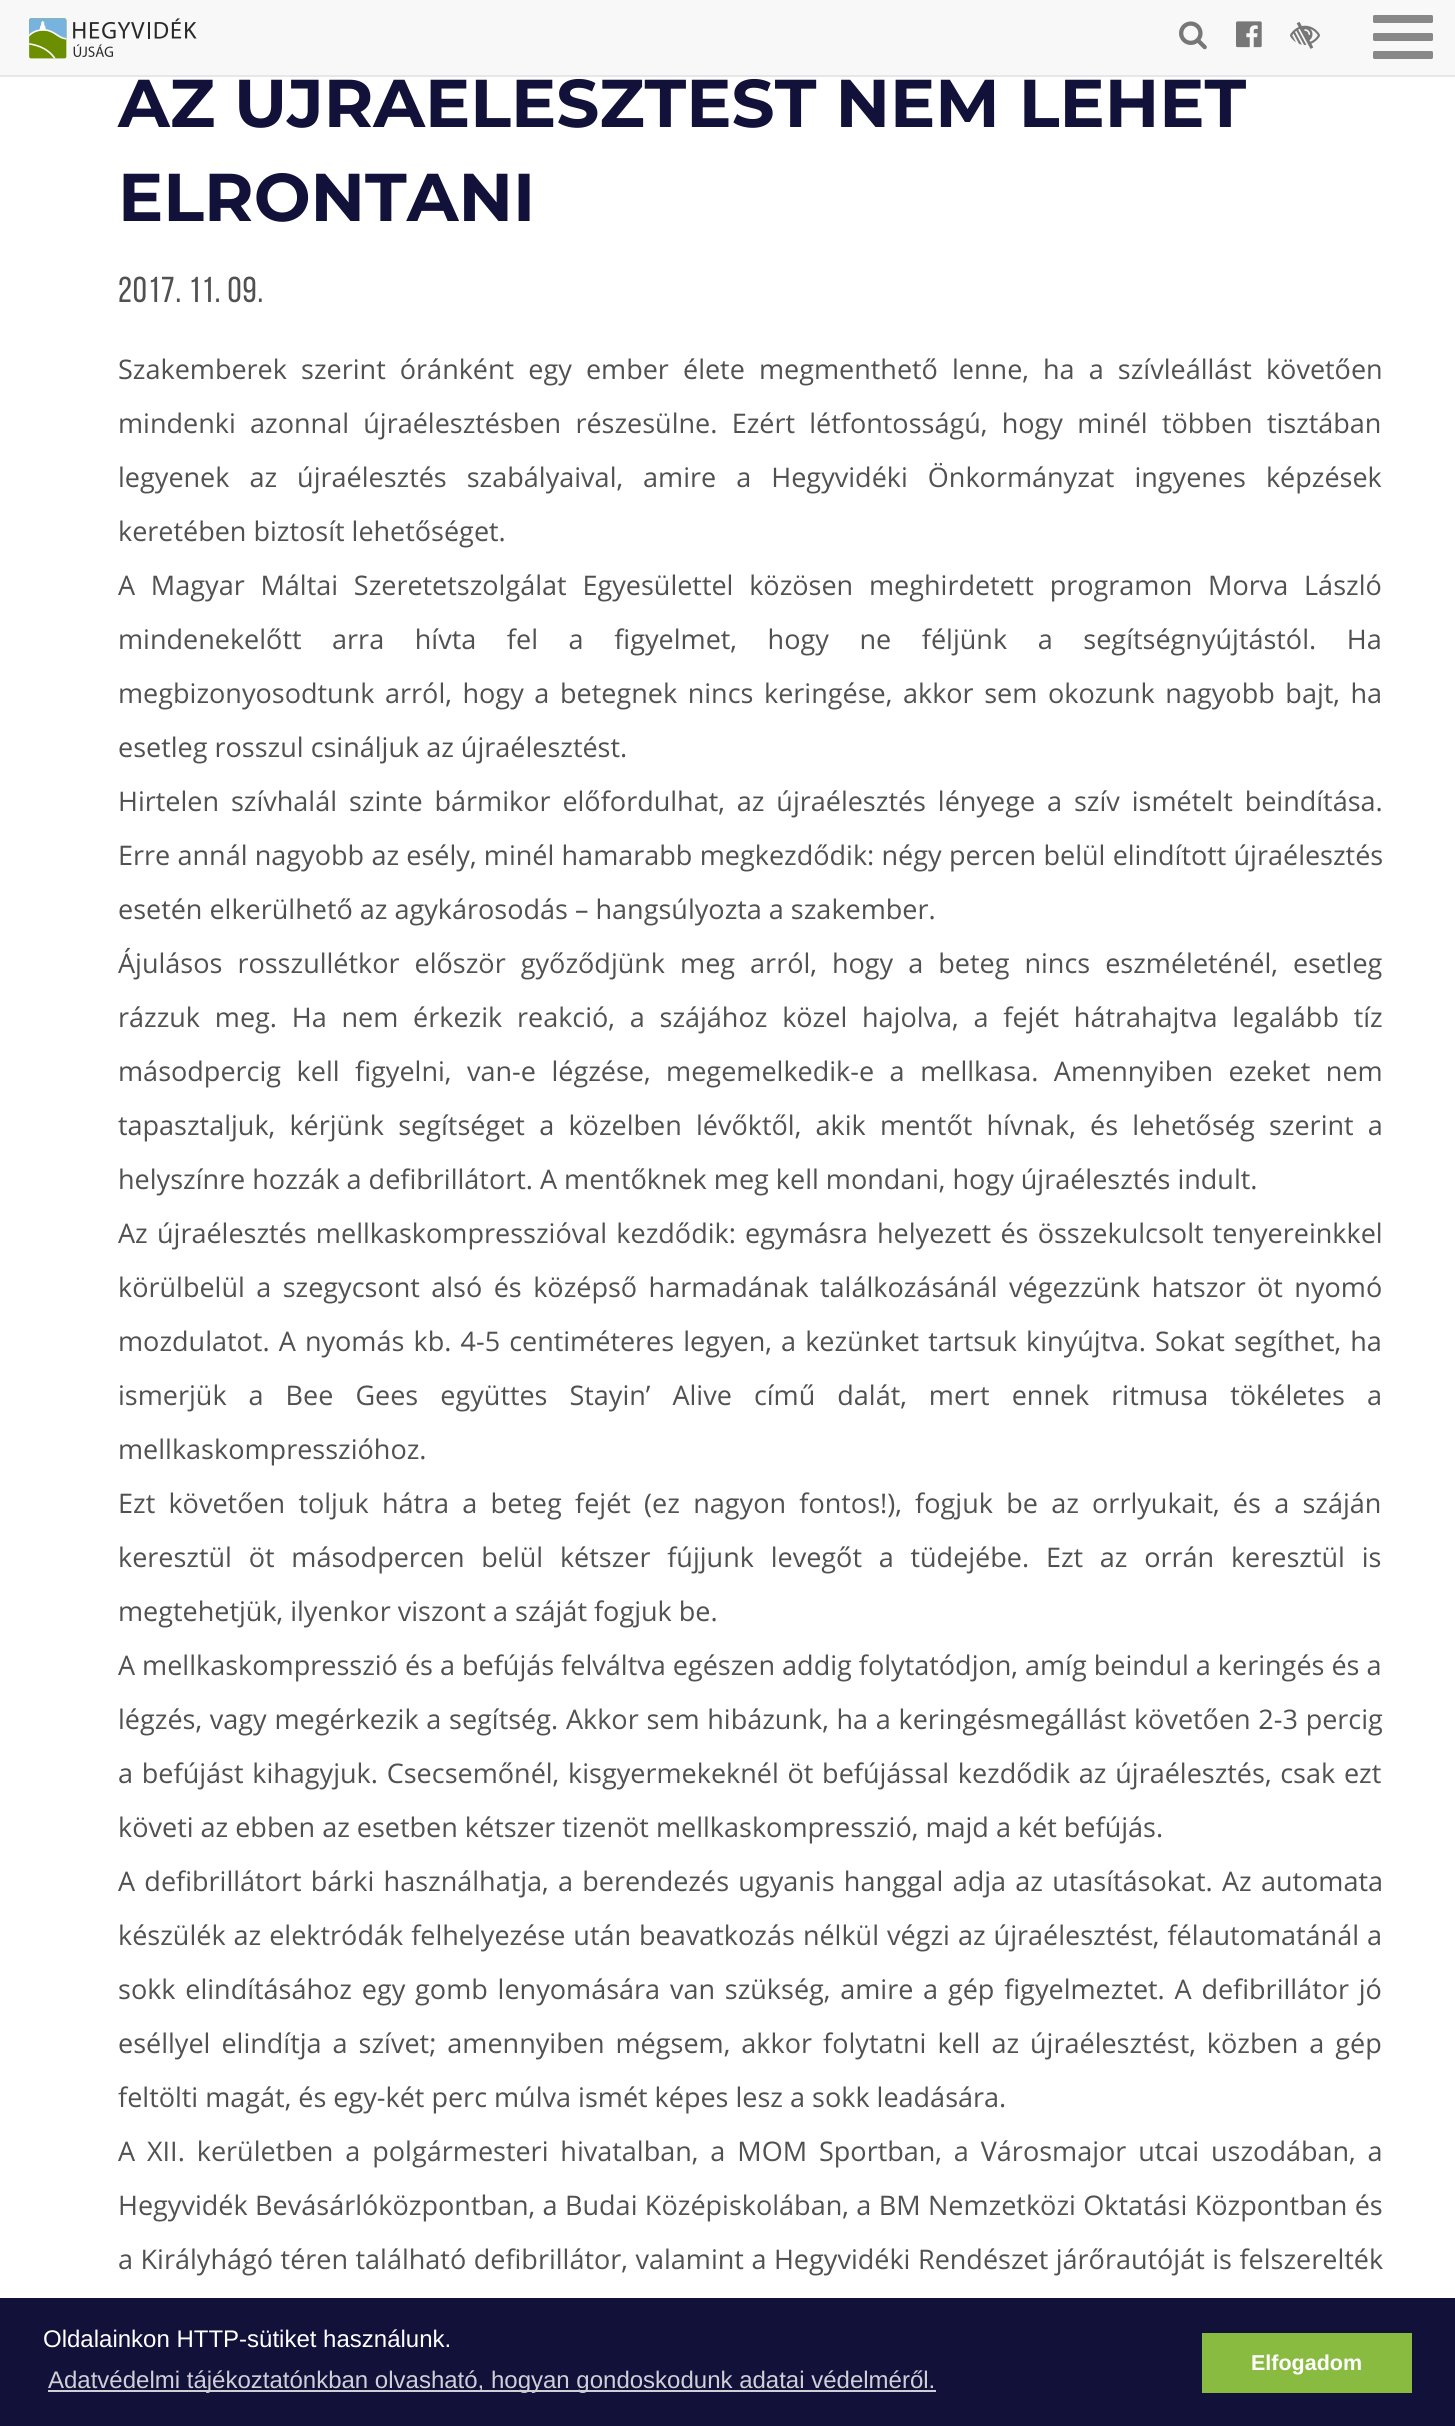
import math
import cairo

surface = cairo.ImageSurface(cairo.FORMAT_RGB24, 1455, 2426)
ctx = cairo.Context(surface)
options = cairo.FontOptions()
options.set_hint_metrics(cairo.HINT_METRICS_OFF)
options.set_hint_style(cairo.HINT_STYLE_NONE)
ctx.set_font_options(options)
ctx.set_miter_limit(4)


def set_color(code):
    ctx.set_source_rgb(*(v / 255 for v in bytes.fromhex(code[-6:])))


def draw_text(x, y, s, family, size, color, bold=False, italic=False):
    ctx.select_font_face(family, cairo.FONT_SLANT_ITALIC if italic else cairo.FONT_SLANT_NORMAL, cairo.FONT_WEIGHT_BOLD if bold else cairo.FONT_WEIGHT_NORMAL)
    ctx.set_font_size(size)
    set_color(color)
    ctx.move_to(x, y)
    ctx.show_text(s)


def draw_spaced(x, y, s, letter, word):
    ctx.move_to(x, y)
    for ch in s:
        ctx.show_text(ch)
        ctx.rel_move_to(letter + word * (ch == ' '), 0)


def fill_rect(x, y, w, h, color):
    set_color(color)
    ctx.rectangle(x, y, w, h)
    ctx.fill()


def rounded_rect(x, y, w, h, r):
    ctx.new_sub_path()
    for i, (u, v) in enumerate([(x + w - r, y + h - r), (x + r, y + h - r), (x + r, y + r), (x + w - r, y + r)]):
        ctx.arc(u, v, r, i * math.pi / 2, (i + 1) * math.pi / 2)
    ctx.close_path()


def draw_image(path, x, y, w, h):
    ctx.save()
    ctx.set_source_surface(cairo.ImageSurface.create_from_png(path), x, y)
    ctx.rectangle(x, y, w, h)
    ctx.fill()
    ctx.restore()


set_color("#ffffff")
ctx.paint()
draw_text(118, 127, "AZ ÚJRAÉLESZTÉST NEM LEHET", "Montserrat", 67.5, "#12113a", bold=True)
fill_rect(0, 0, 1455, 75, "#f8f8f8")
fill_rect(0, 75, 1455, 2, "#e7e7e7")
draw_image("assets/img1.png", 29, 18, 168, 41)
draw_image("assets/img2.png", 1179, 21, 28, 29)
draw_image("assets/img3.png", 1236, 21, 26, 27)
draw_image("assets/img4.png", 1290, 22, 30, 27)
set_color("#888888")
rounded_rect(1373, 15, 60, 8, 1.5)
ctx.fill()
rounded_rect(1373, 33, 60, 8, 1.5)
ctx.fill()
rounded_rect(1373, 51, 60, 8, 1.5)
ctx.fill()
draw_text(118, 221, "ELRONTANI", "Montserrat", 67.5, "#12113a", bold=True)
ctx.select_font_face("Bebas Neue")
ctx.set_font_size(36)
set_color("#515151")
draw_spaced(118, 302, "2017. 11. 09.", 0.9, 0)
ctx.select_font_face("Open Sans")
ctx.set_font_size(27)
draw_spaced(118, 379, "Szakemberek szerint óránként egy ember élete megmenthető lenne, ha a szívleállást követően", 0, 7.1)
draw_spaced(118, 433, "mindenki azonnal újraélesztésben részesülne. Ezért létfontosságú, hogy minél többen tisztában", 0, 7.25)
draw_spaced(118, 487, "legyenek az újraélesztés szabályaival, amire a Hegyvidéki Önkormányzat ingyenes képzések", 0, 13)
draw_text(118, 541, "keretében biztosít lehetőséget.", "Open Sans", 27, "#515151")
draw_spaced(118, 595, "A Magyar Máltai Szeretetszolgálat Egyesülettel közösen meghirdetett programon Morva László", 0, 8.75)
draw_spaced(118, 649, "mindenekelőtt arra hívta fel a figyelmet, hogy ne féljünk a segítségnyújtástól. Ha", 0, 23.6)
draw_spaced(118, 703, "megbizonyosodtunk arról, hogy a betegnek nincs keringése, akkor sem okozunk nagyobb bajt, ha", 0, 3.6)
draw_text(118, 757, "esetleg rosszul csináljuk az újraélesztést.", "Open Sans", 27, "#515151")
draw_spaced(118, 811, "Hirtelen szívhalál szinte bármikor előfordulhat, az újraélesztés lényege a szív ismételt beindítása.", 0, 4.9)
draw_spaced(118, 865, "Erre annál nagyobb az esély, minél hamarabb megkezdődik: négy percen belül elindított újraélesztés", 0, 0.25)
draw_text(118, 919, "esetén elkerülhető az agykárosodás – hangsúlyozta a szakember.", "Open Sans", 27, "#515151")
draw_spaced(118, 973, "Ájulásos rosszullétkor először győződjünk meg arról, hogy a beteg nincs eszméleténél, esetleg", 0, 8)
draw_spaced(118, 1027, "rázzuk meg. Ha nem érkezik reakció, a szájához közel hajolva, a fejét hátrahajtva legalább tíz", 0, 7.75)
draw_spaced(118, 1081, "másodpercig kell figyelni, van-e légzése, megemelkedik-e a mellkasa. Amennyiben ezeket nem", 0, 8.5)
draw_spaced(118, 1135, "tapasztaljuk, kérjünk segítséget a közelben lévőktől, akik mentőt hívnak, és lehetőség szerint a", 0, 7.25)
draw_text(118, 1189, "helyszínre hozzák a defibrillátort. A mentőknek meg kell mondani, hogy újraélesztés indult.", "Open Sans", 27, "#515151")
draw_spaced(118, 1243, "Az újraélesztés mellkaskompresszióval kezdődik: egymásra helyezett és összekulcsolt tenyereinkkel", 0, 2.25)
draw_spaced(118, 1297, "körülbelül a szegycsont alsó és középső harmadának találkozásánál végezzünk hatszor öt nyomó", 0, 4.4)
draw_spaced(118, 1351, "mozdulatot. A nyomás kb. 4-5 centiméteres legyen, a kezünket tartsuk kinyújtva. Sokat segíthet, ha", 0, 2.1)
draw_spaced(118, 1405, "ismerjük a Bee Gees együttes Stayin’ Alive című dalát, mert ennek ritmusa tökéletes a", 0, 15)
draw_text(118, 1459, "mellkaskompresszióhoz.", "Open Sans", 27, "#515151")
draw_spaced(118, 1513, "Ezt követően toljuk hátra a beteg fejét (ez nagyon fontos!), fogjuk be az orrlyukait, és a száján", 0, 6.25)
draw_spaced(118, 1567, "keresztül öt másodpercen belül kétszer fújjunk levegőt a tüdejébe. Ezt az orrán keresztül is", 0, 9.75)
draw_text(118, 1621, "megtehetjük, ilyenkor viszont a száját fogjuk be.", "Open Sans", 27, "#515151")
draw_text(118, 1675, "A mellkaskompresszió és a befújás felváltva egészen addig folytatódjon, amíg beindul a keringés és a", "Open Sans", 27, "#515151")
draw_spaced(118, 1729, "légzés, vagy megérkezik a segítség. Akkor sem hibázunk, ha a keringésmegállást követően 2-3 percig", 0, 0.7)
draw_spaced(118, 1783, "a befújást kihagyjuk. Csecsemőnél, kisgyermekeknél öt befújással kezdődik az újraélesztés, csak ezt", 0, 1.75)
draw_text(118, 1837, "követi az ebben az esetben kétszer tizenöt mellkaskompresszió, majd a két befújás.", "Open Sans", 27, "#515151")
draw_spaced(118, 1891, "A defibrillátort bárki használhatja, a berendezés ugyanis hanggal adja az utasításokat. Az automata", 0, 2.25)
draw_spaced(118, 1945, "készülék az elektródák felhelyezése után beavatkozás nélkül végzi az újraélesztést, félautomatánál a", 0, 1)
draw_spaced(118, 1999, "sokk elindításához egy gomb lenyomására van szükség, amire a gép figyelmeztet. A defibrillátor jó", 0, 2.75)
draw_spaced(118, 2053, "eséllyel elindítja a szívet; amennyiben mégsem, akkor folytatni kell az újraélesztést, közben a gép", 0, 4)
draw_text(118, 2107, "feltölti magát, és egy-két perc múlva ismét képes lesz a sokk leadására.", "Open Sans", 27, "#515151")
draw_spaced(118, 2161, "A XII. kerületben a polgármesteri hivatalban, a MOM Sportban, a Városmajor utcai uszodában, a", 0, 4.9)
draw_spaced(118, 2215, "Hegyvidék Bevásárlóközpontban, a Budai Középiskolában, a BM Nemzetközi Oktatási Központban és", 0, 0.4)
draw_spaced(118, 2269, "a Királyhágó téren található defibrillátor, valamint a Hegyvidéki Rendészet járőrautóját is felszerelték", 0, 0.5)
fill_rect(0, 2298, 1455, 128, "#12113a")
draw_text(43, 2347, "Oldalainkon HTTP-sütiket használunk.", "Liberation Sans", 24, "#ffffff")
fill_rect(48, 2390, 888, 2, "#d0cfd8")
draw_text(48, 2388, "Adatvédelmi tájékoztatónkban olvasható, hogyan gondoskodunk adatai védelméről.", "Liberation Sans", 24, "#d0cfd8")
fill_rect(1202, 2333, 210, 60, "#89bb40")
draw_text(1251, 2370, "Elfogadom", "Liberation Sans", 21.5, "#ffffff", bold=True)
surface.write_to_png("output.png")
